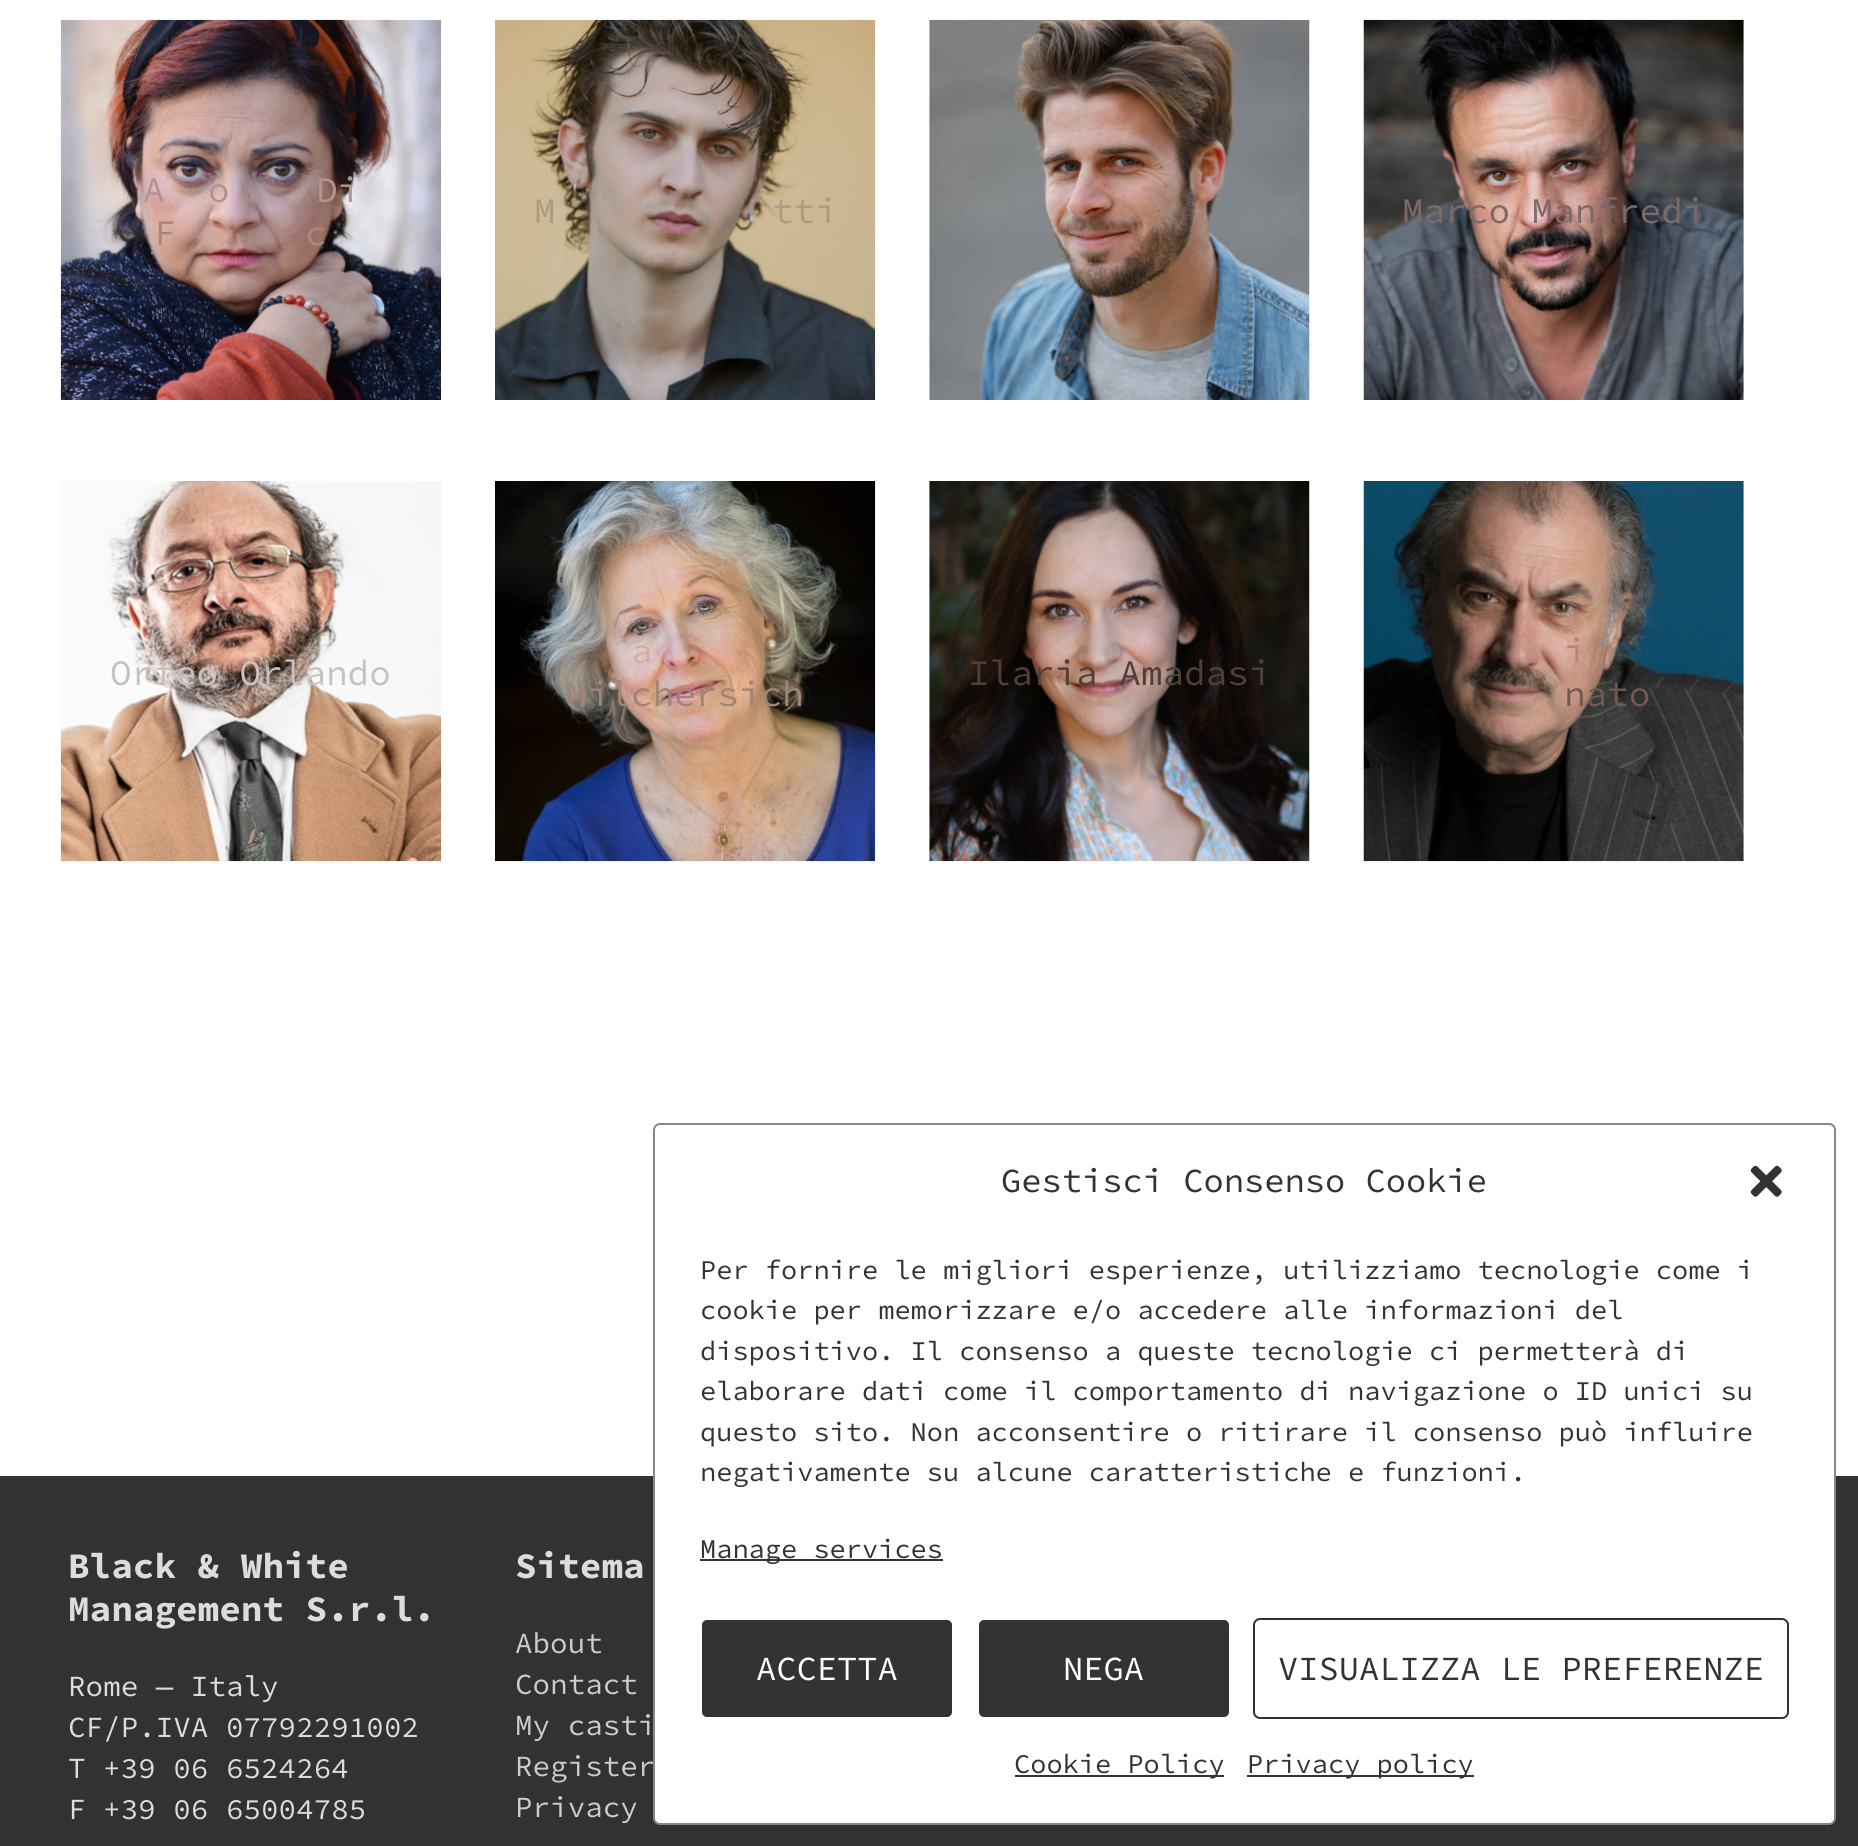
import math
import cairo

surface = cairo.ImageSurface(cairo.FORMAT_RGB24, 1858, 1846)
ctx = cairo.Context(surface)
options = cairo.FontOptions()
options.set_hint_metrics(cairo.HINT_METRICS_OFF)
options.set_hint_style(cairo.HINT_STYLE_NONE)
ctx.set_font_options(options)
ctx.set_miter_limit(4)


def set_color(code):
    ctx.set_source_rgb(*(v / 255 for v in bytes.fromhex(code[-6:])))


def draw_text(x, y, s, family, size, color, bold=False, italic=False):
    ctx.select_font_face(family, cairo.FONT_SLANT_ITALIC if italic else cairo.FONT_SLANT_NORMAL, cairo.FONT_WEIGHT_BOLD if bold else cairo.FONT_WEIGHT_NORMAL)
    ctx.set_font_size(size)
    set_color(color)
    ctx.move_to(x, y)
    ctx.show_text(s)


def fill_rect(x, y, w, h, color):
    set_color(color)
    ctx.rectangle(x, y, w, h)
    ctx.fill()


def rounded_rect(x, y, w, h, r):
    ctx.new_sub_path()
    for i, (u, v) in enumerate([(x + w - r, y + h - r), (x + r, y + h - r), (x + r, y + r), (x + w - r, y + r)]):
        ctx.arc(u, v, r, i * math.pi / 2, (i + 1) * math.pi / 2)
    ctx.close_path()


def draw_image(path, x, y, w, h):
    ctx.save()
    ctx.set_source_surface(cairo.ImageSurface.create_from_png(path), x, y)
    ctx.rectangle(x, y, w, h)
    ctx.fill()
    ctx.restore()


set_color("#ffffff")
ctx.paint()
draw_image("assets/img1.png", 60, 19, 381, 381)
draw_text(143, 202, "A", "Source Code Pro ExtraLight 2 ExtraLight", 36, "#b29392")
draw_text(208, 202, "o", "Source Code Pro ExtraLight 2 ExtraLight", 36, "#b29392")
draw_text(316, 202, "Di", "Source Code Pro ExtraLight 2 ExtraLight", 36, "#b29392")
draw_text(154, 245, "F", "Source Code Pro ExtraLight 2 ExtraLight", 36, "#a9867e")
draw_text(305, 245, "c", "Source Code Pro ExtraLight 2 ExtraLight", 36, "#a9867e")
draw_image("assets/img2.png", 495, 19, 381, 381)
draw_text(534, 223, "M", "Source Code Pro ExtraLight 2 ExtraLight", 36, "#ad9a83")
draw_text(772, 223, "tti", "Source Code Pro ExtraLight 2 ExtraLight", 36, "#ad9a83")
draw_image("assets/img3.png", 929, 19, 381, 381)
draw_image("assets/img4.png", 1363, 19, 381, 381)
draw_text(1402, 223, "Marco Manfredi", "Source Code Pro ExtraLight 2 ExtraLight", 36, "#7c6968")
draw_image("assets/img5.png", 60, 481, 381, 381)
draw_text(110, 685, "Orfeo Orlando", "Source Code Pro ExtraLight 2 ExtraLight", 36, "#c9c1bd")
draw_image("assets/img6.png", 495, 481, 381, 381)
draw_text(631, 663, "a", "Source Code Pro ExtraLight 2 ExtraLight", 36, "#d3ad9f")
draw_text(566, 706, "Milchersich", "Source Code Pro ExtraLight 2 ExtraLight", 36, "#a28475")
draw_image("assets/img7.png", 929, 481, 381, 381)
draw_text(968, 685, "Ilaria Amadasi", "Source Code Pro ExtraLight 2 ExtraLight", 36, "#513e37")
draw_image("assets/img8.png", 1363, 481, 381, 381)
draw_text(1564, 663, "i", "Source Code Pro ExtraLight 2 ExtraLight", 36, "#b48778")
draw_text(1564, 706, "nato", "Source Code Pro ExtraLight 2 ExtraLight", 36, "#715950")
fill_rect(0, 1476, 1858, 370, "#333233")
draw_text(68, 1578, "Black & White", "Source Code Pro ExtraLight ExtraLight", 36, "#dcdcdc")
draw_text(68, 1621, "Management S.r.l.", "Source Code Pro ExtraLight ExtraLight", 36, "#dcdcdc")
draw_text(68, 1696, "Rome — Italy", "Source Code Pro ExtraLight 2 ExtraLight", 29.25, "#dcdcdc")
draw_text(68, 1737, "CF/P.IVA 07792291002", "Source Code Pro ExtraLight 2 ExtraLight", 29.25, "#dcdcdc")
draw_text(68, 1778, "T +39 06 6524264", "Source Code Pro ExtraLight 2 ExtraLight", 29.25, "#dcdcdc")
draw_text(68, 1819, "F +39 06 65004785", "Source Code Pro ExtraLight 2 ExtraLight", 29.25, "#dcdcdc")
draw_text(515, 1578, "Sitema", "Source Code Pro ExtraLight ExtraLight", 36, "#dcdcdc")
draw_text(515, 1653, "About", "Source Code Pro ExtraLight 2 ExtraLight", 29.25, "#cccccc")
draw_text(515, 1694, "Contact", "Source Code Pro ExtraLight 2 ExtraLight", 29.25, "#cccccc")
draw_text(515, 1735, "My casti", "Source Code Pro ExtraLight 2 ExtraLight", 29.25, "#cccccc")
draw_text(515, 1776, "Register", "Source Code Pro ExtraLight 2 ExtraLight", 29.25, "#cccccc")
draw_text(515, 1817, "Privacy", "Source Code Pro ExtraLight 2 ExtraLight", 29.25, "#cccccc")
set_color("#ffffff")
rounded_rect(654, 1124, 1181, 700, 6)
ctx.fill_preserve()
set_color("#878787")
ctx.stroke()
draw_text(1001, 1192, "Gestisci Consenso Cookie", "Source Code Pro ExtraLight 2 ExtraLight", 33.75, "#333333")
draw_image("assets/img9.png", 1750, 1165, 32, 32)
draw_text(700, 1279, "Per fornire le migliori esperienze, utilizziamo tecnologie come i", "Source Code Pro ExtraLight 2 ExtraLight", 27, "#333333")
draw_text(700, 1319, "cookie per memorizzare e/o accedere alle informazioni del", "Source Code Pro ExtraLight 2 ExtraLight", 27, "#333333")
draw_text(700, 1360, "dispositivo. Il consenso a queste tecnologie ci permetterà di", "Source Code Pro ExtraLight 2 ExtraLight", 27, "#333333")
draw_text(700, 1400, "elaborare dati come il comportamento di navigazione o ID unici su", "Source Code Pro ExtraLight 2 ExtraLight", 27, "#333333")
draw_text(700, 1441, "questo sito. Non acconsentire o ritirare il consenso può influire", "Source Code Pro ExtraLight 2 ExtraLight", 27, "#333333")
draw_text(700, 1481, "negativamente su alcune caratteristiche e funzioni.", "Source Code Pro ExtraLight 2 ExtraLight", 27, "#333333")
fill_rect(700, 1559, 243, 2, "#333333")
draw_text(700, 1558, "Manage services", "Source Code Pro ExtraLight 2 ExtraLight", 27, "#333333")
rounded_rect(701, 1619, 252, 99, 6)
ctx.fill_preserve()
set_color("#ffffff")
ctx.stroke()
draw_text(756, 1680, "ACCETTA", "Source Code Pro ExtraLight 2 ExtraLight", 33.75, "#ffffff")
set_color("#333333")
rounded_rect(978, 1619, 252, 99, 6)
ctx.fill_preserve()
set_color("#ffffff")
ctx.stroke()
draw_text(1063, 1680, "NEGA", "Source Code Pro ExtraLight 2 ExtraLight", 33.75, "#ffffff")
rounded_rect(1254, 1619, 534, 99, 6)
set_color("#333333")
ctx.stroke()
draw_text(1278, 1680, "VISUALIZZA LE PREFERENZE", "Source Code Pro ExtraLight 2 ExtraLight", 33.75, "#333333")
fill_rect(1015, 1775, 209, 2, "#333333")
draw_text(1014, 1773, "Cookie Policy", "Source Code Pro ExtraLight 2 ExtraLight", 27, "#333333")
fill_rect(1247, 1775, 227, 2, "#333333")
draw_text(1247, 1773, "Privacy policy", "Source Code Pro ExtraLight 2 ExtraLight", 27, "#333333")
surface.write_to_png("output.png")
